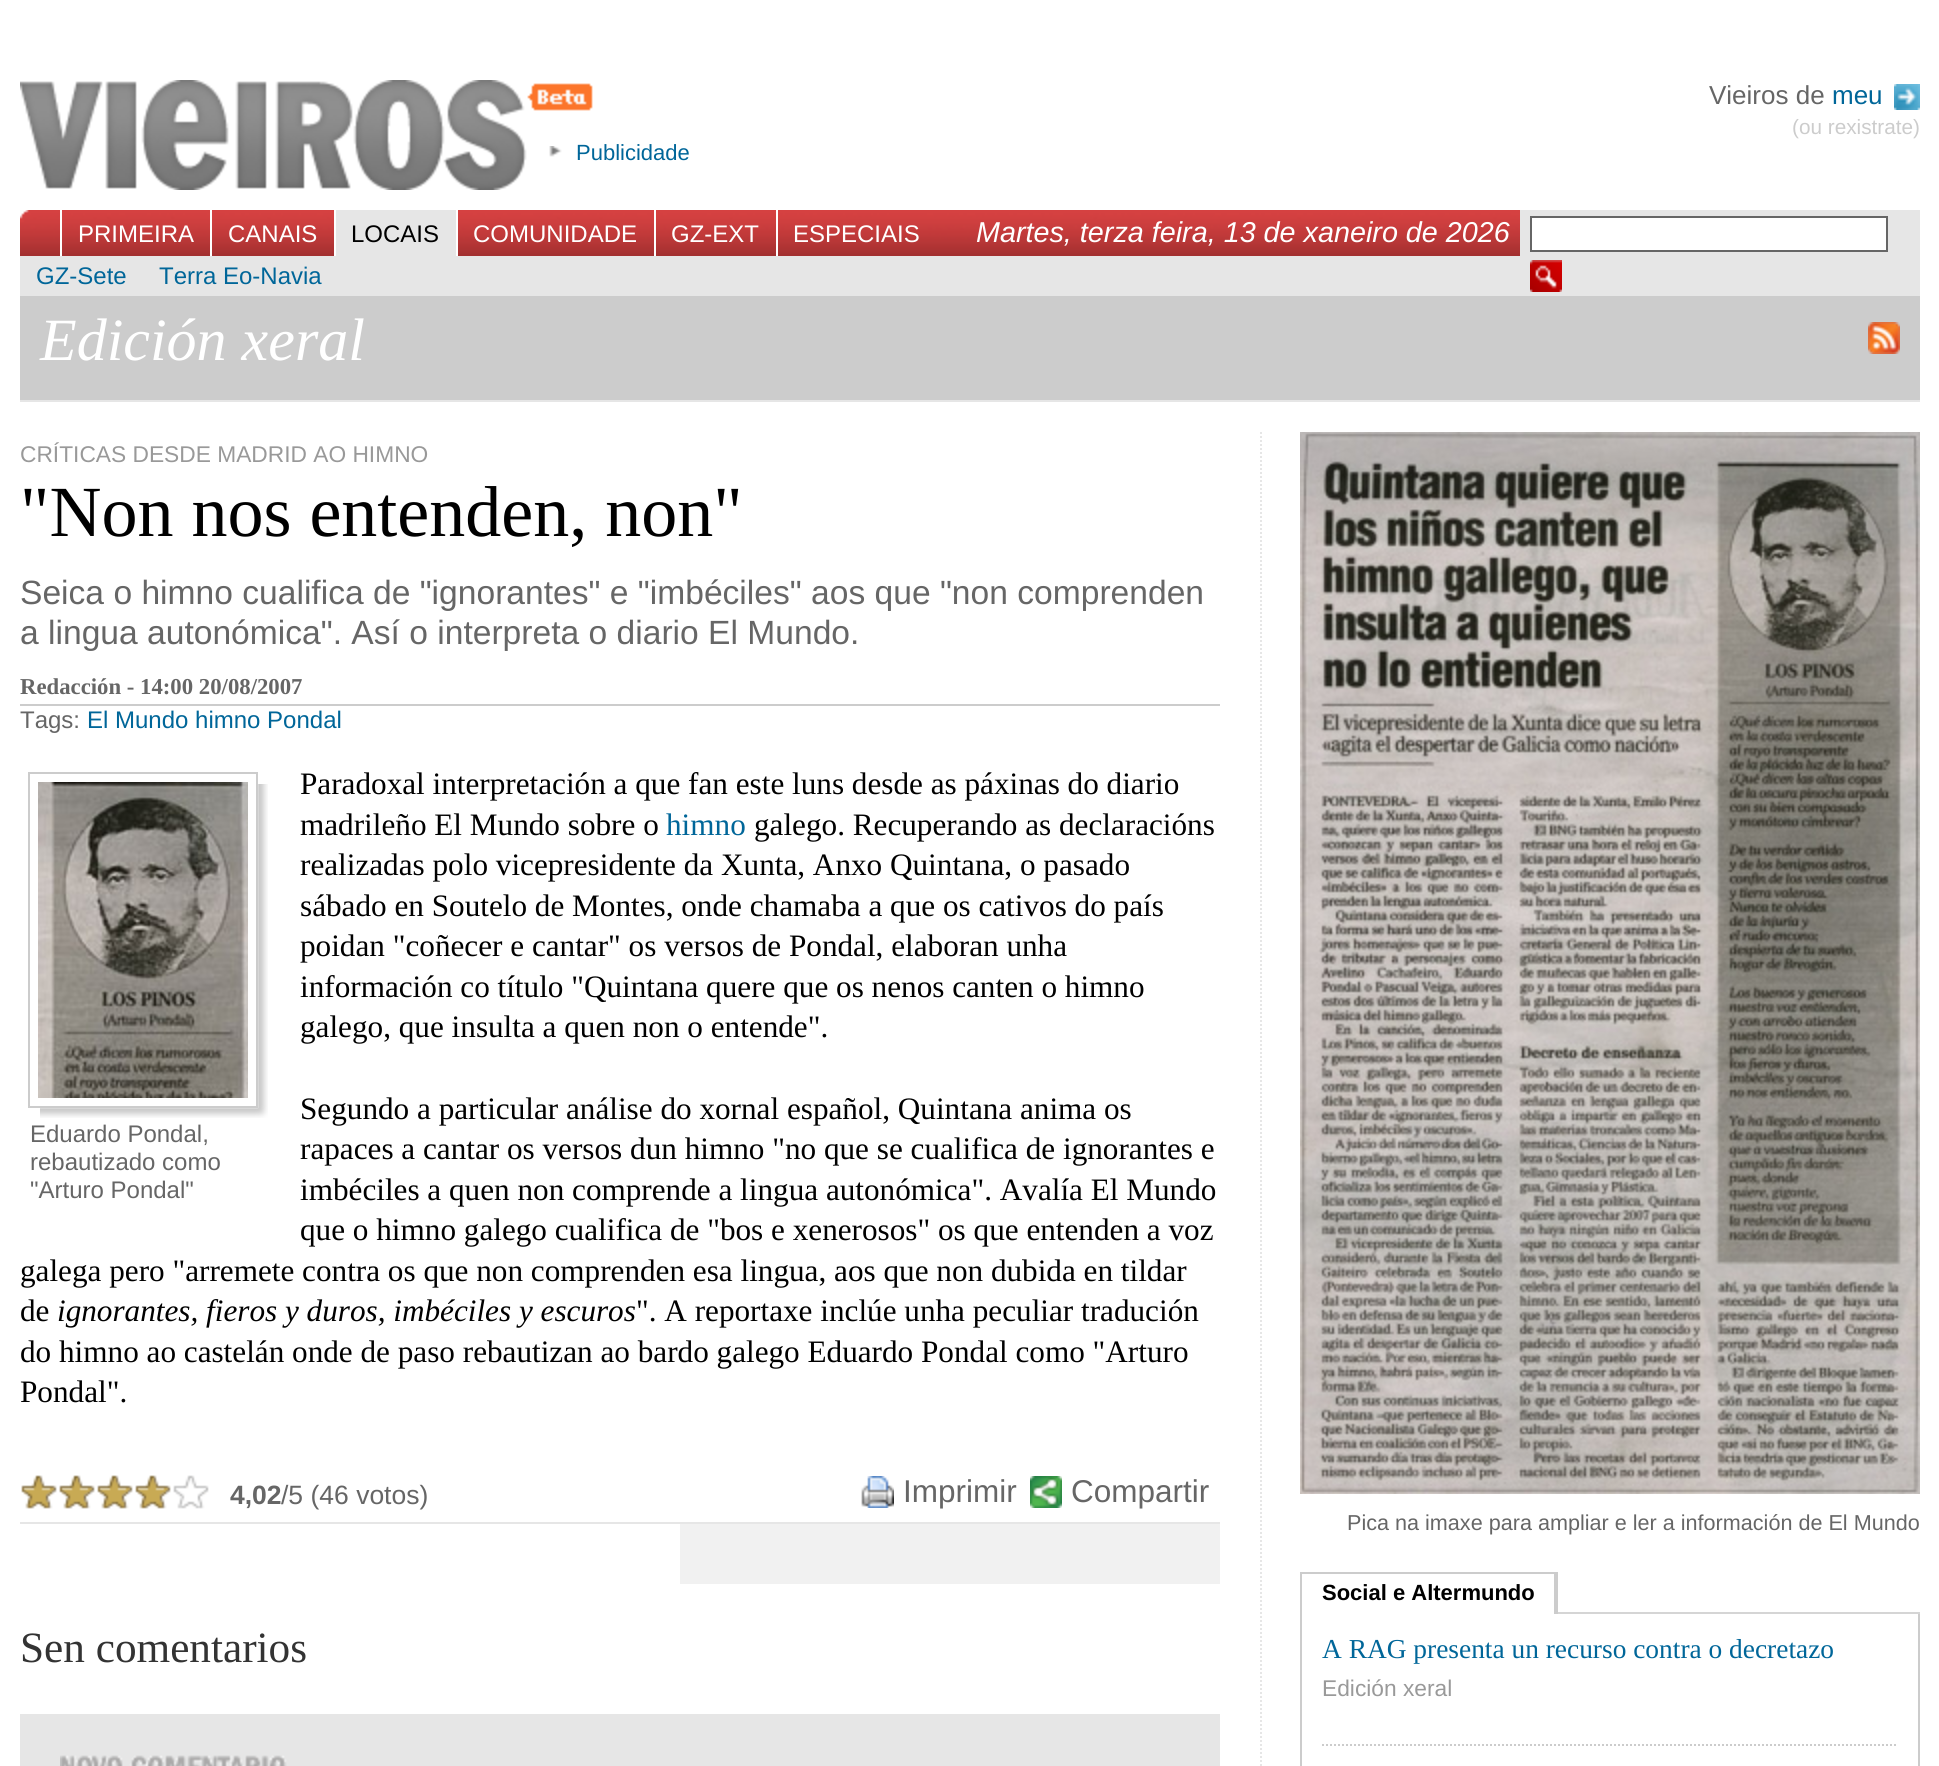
import math
import cairo

surface = cairo.ImageSurface(cairo.FORMAT_RGB24, 1939, 1766)
ctx = cairo.Context(surface)
options = cairo.FontOptions()
options.set_hint_metrics(cairo.HINT_METRICS_OFF)
options.set_hint_style(cairo.HINT_STYLE_NONE)
ctx.set_font_options(options)
ctx.set_miter_limit(4)


def set_color(code):
    ctx.set_source_rgb(*(v / 255 for v in bytes.fromhex(code[-6:])))


def draw_text(x, y, s, family, size, color, bold=False, italic=False):
    ctx.select_font_face(family, cairo.FONT_SLANT_ITALIC if italic else cairo.FONT_SLANT_NORMAL, cairo.FONT_WEIGHT_BOLD if bold else cairo.FONT_WEIGHT_NORMAL)
    ctx.set_font_size(size)
    set_color(color)
    ctx.move_to(x, y)
    ctx.show_text(s)


def fill_rect(x, y, w, h, color):
    set_color(color)
    ctx.rectangle(x, y, w, h)
    ctx.fill()


def draw_image(path, x, y, w, h):
    ctx.save()
    ctx.set_source_surface(cairo.ImageSurface.create_from_png(path), x, y)
    ctx.rectangle(x, y, w, h)
    ctx.fill()
    ctx.restore()


set_color("#ffffff")
ctx.paint()
draw_image("assets/img1.png", 20, 80, 573, 110)
draw_text(1709, 104, "Vieiros de", "Liberation Sans", 26, "#666666")
draw_text(1832, 104, "meu", "Liberation Sans", 26, "#006699")
draw_image("assets/img2.png", 1894, 84, 26, 26)
draw_text(1792, 134, "(ou rexistrate)", "Liberation Sans", 20.75, "#cccccc")
draw_image("assets/img3.png", 549, 146, 13, 11)
draw_text(576, 160, "Publicidade", "Liberation Sans", 22, "#006699")
draw_image("assets/img4.png", 20, 210, 1500, 46)
fill_rect(60, 210, 2, 46, "#ffffff")
draw_text(78, 242, "PRIMEIRA", "Liberation Sans", 24, "#ffffff")
fill_rect(210, 210, 2, 46, "#ffffff")
draw_text(228, 242, "CANAIS", "Liberation Sans", 24, "#ffffff")
fill_rect(334, 210, 2, 46, "#ffffff")
fill_rect(336, 210, 120, 46, "#e6e6e6")
draw_text(351, 242, "LOCAIS", "Liberation Sans", 24, "#000000")
fill_rect(456, 210, 2, 46, "#ffffff")
draw_text(473, 242, "COMUNIDADE", "Liberation Sans", 24, "#ffffff")
fill_rect(654, 210, 2, 46, "#ffffff")
draw_text(671, 242, "GZ-EXT", "Liberation Sans", 24, "#ffffff")
fill_rect(776, 210, 2, 46, "#ffffff")
draw_text(793, 242, "ESPECIAIS", "Liberation Sans", 24, "#ffffff")
draw_text(976, 242, "Martes, terza feira, 13 de xaneiro de 2026", "Liberation Sans", 28.75, "#ffffff", italic=True)
fill_rect(1520, 210, 400, 46, "#e6e6e6")
set_color("#ffffff")
ctx.rectangle(1531, 217, 356, 34)
ctx.fill_preserve()
set_color("#666666")
ctx.stroke()
fill_rect(20, 256, 1900, 40, "#e6e6e6")
draw_image("assets/img5.png", 1530, 260, 32, 32)
draw_text(36, 284, "GZ-Sete", "Liberation Sans", 24, "#006699")
draw_text(159, 284, "Terra Eo-Navia", "Liberation Sans", 24, "#006699")
fill_rect(20, 296, 1900, 104, "#cccccc")
fill_rect(20, 400, 1900, 2, "#e6e6e6")
draw_text(40, 360, "Edición xeral", "Liberation Serif", 60, "#ffffff", italic=True)
draw_image("assets/img6.png", 1868, 322, 32, 32)
ctx.new_path()
ctx.move_to(1261, 432)
ctx.line_to(1261, 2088)
set_color("#e6e6e6")
ctx.set_dash([2, 2])
ctx.stroke()
draw_text(20, 462, "CRÍTICAS DESDE MADRID AO HIMNO", "Liberation Sans", 22.75, "#999999")
draw_text(20, 536, "\"Non nos entenden, non\"", "Liberation Serif", 72, "#000000")
draw_text(20, 604, "Seica o himno cualifica de \"ignorantes\" e \"imbéciles\" aos que \"non comprenden", "Liberation Sans", 33.6, "#666666")
draw_text(20, 644, "a lingua autonómica\". Así o interpreta o diario El Mundo.", "Liberation Sans", 33.6, "#666666")
fill_rect(20, 704, 1200, 2, "#cccccc")
draw_text(20, 694, "Redacción - 14:00 20/08/2007", "Liberation Serif", 22.75, "#666666", bold=True)
draw_text(20, 728, "Tags:", "Liberation Sans", 24, "#666666")
draw_text(87, 728, "El Mundo himno Pondal", "Liberation Sans", 24, "#006699")
draw_text(300, 794, "Paradoxal interpretación a que fan este luns desde as páxinas do diario", "Liberation Serif", 31.2, "#000000")
draw_text(300, 835, "madrileño El Mundo sobre o", "Liberation Serif", 31.2, "#000000")
draw_text(666, 835, "himno", "Liberation Serif", 31.2, "#006699")
draw_text(754, 835, "galego. Recuperando as declaracións", "Liberation Serif", 31.2, "#000000")
draw_text(300, 875, "realizadas polo vicepresidente da Xunta, Anxo Quintana, o pasado", "Liberation Serif", 31.2, "#000000")
draw_text(300, 916, "sábado en Soutelo de Montes, onde chamaba a que os cativos do país", "Liberation Serif", 31.2, "#000000")
draw_text(300, 956, "poidan \"coñecer e cantar\" os versos de Pondal, elaboran unha", "Liberation Serif", 31.2, "#000000")
draw_text(300, 997, "información co título \"Quintana quere que os nenos canten o himno", "Liberation Serif", 31.2, "#000000")
draw_text(300, 1037, "galego, que insulta a quen non o entende\".", "Liberation Serif", 31.2, "#000000")
draw_text(300, 1119, "Segundo a particular análise do xornal español, Quintana anima os", "Liberation Serif", 31.2, "#000000")
draw_text(300, 1159, "rapaces a cantar os versos dun himno \"no que se cualifica de ignorantes e", "Liberation Serif", 31.2, "#000000")
draw_text(300, 1200, "imbéciles a quen non comprende a lingua autonómica\". Avalía El Mundo", "Liberation Serif", 31.2, "#000000")
draw_text(300, 1240, "que o himno galego cualifica de \"bos e xenerosos\" os que entenden a voz", "Liberation Serif", 31.2, "#000000")
draw_text(20, 1281, "galega pero \"arremete contra os que non comprenden esa lingua, aos que non dubida en tildar", "Liberation Serif", 31.2, "#000000")
draw_text(20, 1321, "de", "Liberation Serif", 31.2, "#000000")
draw_text(57, 1321, "ignorantes, fieros y duros, imbéciles y escuros", "Liberation Serif", 31.2, "#000000", italic=True)
draw_text(636, 1321, "\". A reportaxe inclúe unha peculiar tradución", "Liberation Serif", 31.2, "#000000")
draw_text(20, 1362, "do himno ao castelán onde de paso rebautizan ao bardo galego Eduardo Pondal como \"Arturo", "Liberation Serif", 31.2, "#000000")
draw_text(20, 1402, "Pondal\".", "Liberation Serif", 31.2, "#000000")
draw_image("assets/img7.png", 40, 784, 228, 334)
ctx.rectangle(29, 773, 228, 334)
set_color("#cccccc")
ctx.set_dash([])
ctx.stroke()
draw_image("assets/img8.png", 38, 782, 210, 316)
draw_text(30, 1142, "Eduardo Pondal,", "Liberation Sans", 24, "#666666")
draw_text(30, 1170, "rebautizado como", "Liberation Sans", 24, "#666666")
draw_text(30, 1198, "\"Arturo Pondal\"", "Liberation Sans", 24, "#666666")
fill_rect(20, 1522, 1200, 2, "#e6e6e6")
draw_image("assets/img9.png", 171, 1475, 38, 34)
draw_image("assets/img10.png", 21, 1475, 150, 34)
draw_text(230, 1504, "4,02", "Liberation Sans", 26.5, "#666666", bold=True)
draw_text(281, 1504, "/5 (46 votos)", "Liberation Sans", 26.5, "#666666")
draw_image("assets/img11.png", 861, 1476, 33, 32)
draw_text(903, 1502, "Imprimir", "Liberation Sans", 31.5, "#666666")
draw_image("assets/img12.png", 1030, 1476, 32, 32)
draw_text(1071, 1502, "Compartir", "Liberation Sans", 31.5, "#666666")
fill_rect(680, 1524, 540, 60, "#f1f1f1")
draw_text(20, 1662, "Sen comentarios", "Liberation Serif", 43.25, "#333333")
fill_rect(20, 1714, 1200, 52, "#e6e6e6")
draw_image("assets/img13.png", 60, 1755, 227, 11)
draw_image("assets/img14.png", 1300, 432, 620, 1062)
draw_text(1347, 1530, "Pica na imaxe para ampliar e ler a información de El Mundo", "Liberation Sans", 21.6, "#666666")
fill_rect(1558, 1612, 362, 2, "#d5d5d5")
fill_rect(1300, 1572, 258, 2, "#cccccc")
fill_rect(1554, 1572, 4, 42, "#cccccc")
fill_rect(1300, 1572, 2, 42, "#cccccc")
draw_text(1322, 1600, "Social e Altermundo", "Liberation Sans", 22, "#000000", bold=True)
fill_rect(1918, 1614, 2, 152, "#cccccc")
fill_rect(1300, 1614, 2, 152, "#cccccc")
ctx.new_path()
ctx.move_to(1322, 1745)
ctx.line_to(1898, 1745)
ctx.set_dash([2, 2])
ctx.stroke()
draw_text(1322, 1658, "A RAG presenta un recurso contra o decretazo", "Liberation Serif", 27.4, "#006699")
draw_text(1322, 1696, "Edición xeral", "Liberation Sans", 22.75, "#999999")
surface.write_to_png("output.png")
